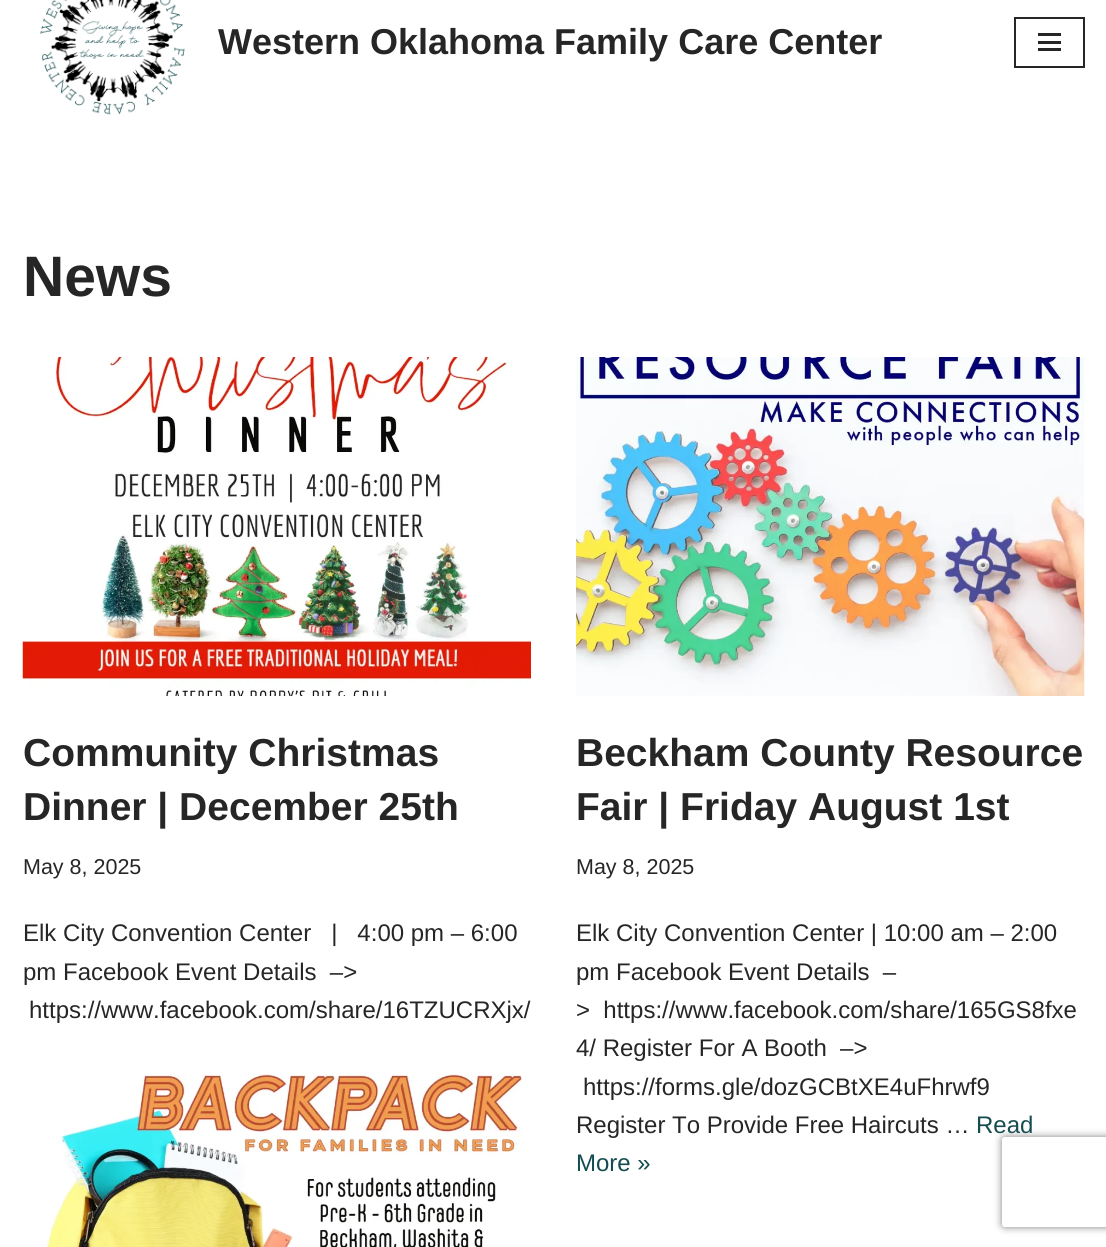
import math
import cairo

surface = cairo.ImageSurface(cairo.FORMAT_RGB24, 1106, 1247)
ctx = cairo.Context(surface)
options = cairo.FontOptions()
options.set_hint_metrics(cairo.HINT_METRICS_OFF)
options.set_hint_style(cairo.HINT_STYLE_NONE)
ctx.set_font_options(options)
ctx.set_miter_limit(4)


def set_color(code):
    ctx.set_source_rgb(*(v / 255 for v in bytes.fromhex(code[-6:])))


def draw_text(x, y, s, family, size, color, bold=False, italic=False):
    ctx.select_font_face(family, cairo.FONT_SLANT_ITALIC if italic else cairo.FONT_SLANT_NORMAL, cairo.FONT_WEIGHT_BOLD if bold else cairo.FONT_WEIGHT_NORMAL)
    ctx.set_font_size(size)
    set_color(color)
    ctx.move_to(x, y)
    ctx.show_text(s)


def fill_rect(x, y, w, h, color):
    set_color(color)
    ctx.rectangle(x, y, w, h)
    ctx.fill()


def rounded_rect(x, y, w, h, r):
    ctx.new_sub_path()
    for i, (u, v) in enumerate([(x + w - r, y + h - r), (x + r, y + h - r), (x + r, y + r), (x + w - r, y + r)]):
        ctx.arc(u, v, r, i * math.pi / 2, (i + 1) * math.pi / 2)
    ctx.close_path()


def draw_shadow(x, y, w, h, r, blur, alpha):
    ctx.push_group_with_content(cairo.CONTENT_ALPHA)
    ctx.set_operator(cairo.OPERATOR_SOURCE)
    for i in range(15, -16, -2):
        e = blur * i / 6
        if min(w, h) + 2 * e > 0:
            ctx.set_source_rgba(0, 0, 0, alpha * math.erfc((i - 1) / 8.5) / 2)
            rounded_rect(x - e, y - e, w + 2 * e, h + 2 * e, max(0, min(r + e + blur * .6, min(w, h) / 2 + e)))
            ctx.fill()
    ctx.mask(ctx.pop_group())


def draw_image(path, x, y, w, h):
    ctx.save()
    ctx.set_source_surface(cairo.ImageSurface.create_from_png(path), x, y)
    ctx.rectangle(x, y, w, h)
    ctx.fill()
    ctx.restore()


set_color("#ffffff")
ctx.paint()
draw_image("assets/img1.png", 40, 0, 145, 115)
draw_text(218, 54, "Western Oklahoma Family Care Center", "Liberation Sans", 36, "#272626", bold=True)
ctx.rectangle(1015, 18, 69, 49)
ctx.stroke()
fill_rect(1038, 33, 23, 3, "#272626")
fill_rect(1038, 41, 23, 3, "#272626")
fill_rect(1038, 48, 23, 3, "#272626")
draw_text(23, 296, "News", "Liberation Sans", 57, "#272626", bold=True)
draw_image("assets/img2.png", 22, 357, 509, 339)
draw_text(23, 766, "Community Christmas", "Liberation Sans", 39, "#272626", bold=True)
draw_text(23, 820, "Dinner | December 25th", "Liberation Sans", 39, "#272626", bold=True)
draw_text(23, 874, "May 8, 2025", "Liberation Sans", 21.5, "#272626")
draw_text(23, 941, "Elk City Convention Center   |   4:00 pm – 6:00", "Liberation Sans", 24, "#272626")
draw_text(23, 980, "pm Facebook Event Details  –>", "Liberation Sans", 24, "#272626")
draw_text(29, 1018, "https://www.facebook.com/share/16TZUCRXjx/", "Liberation Sans", 24, "#272626")
draw_image("assets/img3.png", 576, 357, 509, 339)
draw_text(576, 766, "Beckham County Resource", "Liberation Sans", 39, "#272626", bold=True)
draw_text(576, 820, "Fair | Friday August 1st", "Liberation Sans", 39, "#272626", bold=True)
draw_text(576, 874, "May 8, 2025", "Liberation Sans", 21.5, "#272626")
draw_text(576, 941, "Elk City Convention Center | 10:00 am – 2:00", "Liberation Sans", 24, "#272626")
draw_text(576, 980, "pm Facebook Event Details  –", "Liberation Sans", 24, "#272626")
draw_text(576, 1018, ">  https://www.facebook.com/share/165GS8fxe", "Liberation Sans", 24, "#272626")
draw_text(576, 1056, "4/ Register For A Booth  –>", "Liberation Sans", 24, "#272626")
draw_text(583, 1095, "https://forms.gle/dozGCBtXE4uFhrwf9", "Liberation Sans", 24, "#272626")
draw_text(576, 1133, "Register To Provide Free Haircuts …", "Liberation Sans", 24, "#272626")
draw_text(976, 1133, "Read", "Liberation Sans", 24, "#154c4f")
draw_text(576, 1171, "More »", "Liberation Sans", 24, "#154c4f")
draw_image("assets/img4.png", 46, 1074, 477, 173)
ctx.save()
ctx.set_fill_rule(cairo.FILL_RULE_EVEN_ODD)
ctx.new_path()
ctx.move_to(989, 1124)
ctx.line_to(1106, 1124)
ctx.line_to(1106, 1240)
ctx.line_to(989, 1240)
ctx.close_path()
ctx.move_to(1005, 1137)
ctx.line_to(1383, 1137)
ctx.curve_to(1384.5, 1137, 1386, 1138.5, 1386, 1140)
ctx.line_to(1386, 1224)
ctx.curve_to(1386, 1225.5, 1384.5, 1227, 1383, 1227)
ctx.line_to(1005, 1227)
ctx.curve_to(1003.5, 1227, 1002, 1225.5, 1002, 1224)
ctx.line_to(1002, 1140)
ctx.curve_to(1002, 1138.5, 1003.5, 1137, 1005, 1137)
ctx.close_path()
ctx.clip()
set_color("#808080")
draw_shadow(1002, 1137, 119, 90, 3, 4, 1)
ctx.restore()
surface.write_to_png("output.png")
